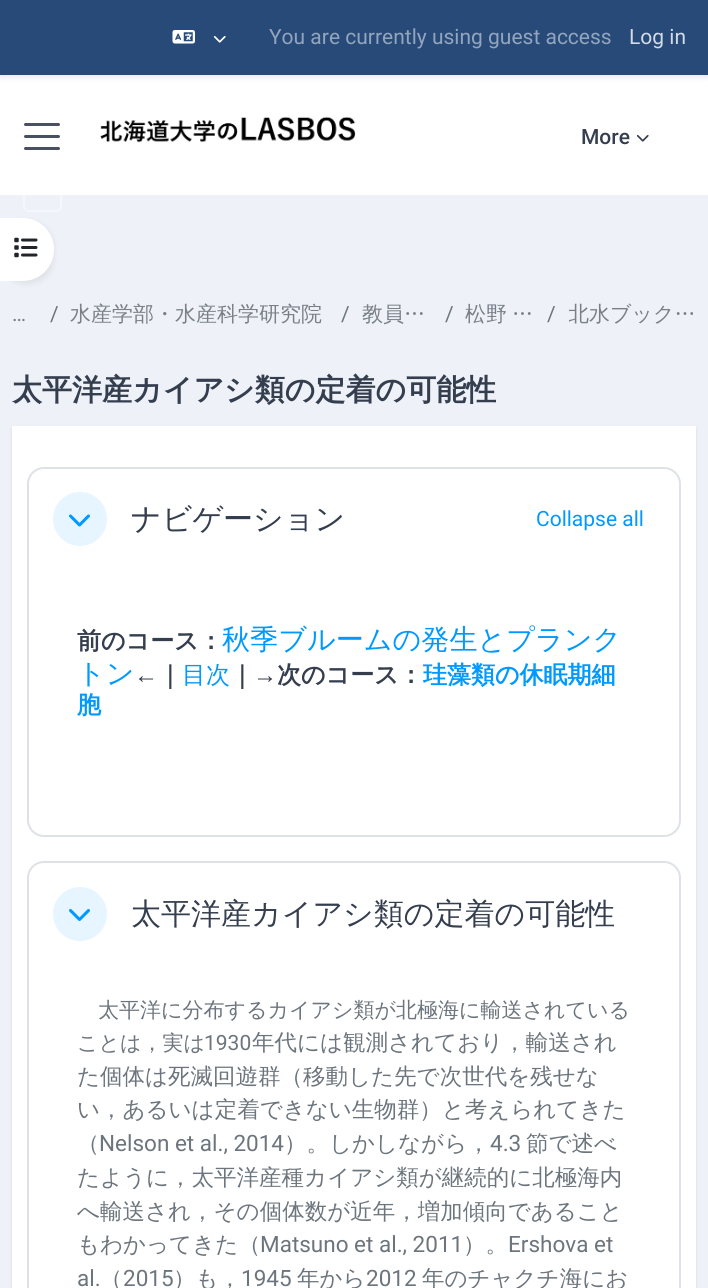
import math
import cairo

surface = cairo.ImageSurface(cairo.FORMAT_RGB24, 708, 1288)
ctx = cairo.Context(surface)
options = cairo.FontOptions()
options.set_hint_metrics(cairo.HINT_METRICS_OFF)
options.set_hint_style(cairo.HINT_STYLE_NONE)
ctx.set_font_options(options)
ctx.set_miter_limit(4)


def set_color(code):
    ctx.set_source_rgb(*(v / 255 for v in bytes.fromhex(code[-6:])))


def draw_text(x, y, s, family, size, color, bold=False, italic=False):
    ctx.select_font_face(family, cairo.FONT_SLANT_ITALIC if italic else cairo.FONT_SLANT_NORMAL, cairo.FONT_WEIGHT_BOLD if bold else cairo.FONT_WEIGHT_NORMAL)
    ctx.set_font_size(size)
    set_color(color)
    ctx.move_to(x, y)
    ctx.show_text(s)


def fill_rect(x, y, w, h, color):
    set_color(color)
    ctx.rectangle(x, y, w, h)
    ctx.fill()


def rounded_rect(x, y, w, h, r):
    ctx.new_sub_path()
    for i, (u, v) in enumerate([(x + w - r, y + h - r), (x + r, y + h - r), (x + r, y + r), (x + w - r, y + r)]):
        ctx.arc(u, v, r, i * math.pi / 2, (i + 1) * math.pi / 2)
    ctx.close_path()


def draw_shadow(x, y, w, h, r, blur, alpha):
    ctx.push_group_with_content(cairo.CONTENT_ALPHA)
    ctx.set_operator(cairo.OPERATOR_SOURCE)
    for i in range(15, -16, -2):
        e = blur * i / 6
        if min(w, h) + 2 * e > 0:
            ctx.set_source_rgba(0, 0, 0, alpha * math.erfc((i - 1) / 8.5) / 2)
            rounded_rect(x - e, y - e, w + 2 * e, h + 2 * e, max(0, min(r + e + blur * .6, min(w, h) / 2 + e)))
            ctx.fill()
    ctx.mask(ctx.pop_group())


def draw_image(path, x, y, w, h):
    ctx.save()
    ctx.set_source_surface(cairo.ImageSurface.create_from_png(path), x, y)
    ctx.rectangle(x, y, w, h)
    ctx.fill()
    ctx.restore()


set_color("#eef2f8")
ctx.paint()
fill_rect(0, 75, 708, 120, "#ffffff")
set_color("#000000")
draw_shadow(0, 2, 708, 75, 0, 3, 0.1)
fill_rect(0, 0, 708, 75, "#274a78")
draw_image("assets/img1.png", 172, 30, 23, 14)
draw_image("assets/img2.png", 213, 36, 13, 7)
draw_text(269, 44, "You are currently using guest access", "Roboto", 21, "#93a5bc")
draw_text(629, 44, "Log in", "Roboto", 21, "#d4dbe4")
rounded_rect(24, 99, 37, 112, 5)
ctx.set_source_rgba(1, 1, 1, 0.4)
ctx.stroke()
set_color("#495160")
rounded_rect(24, 123, 36, 3, 1.5)
ctx.fill()
rounded_rect(24, 135, 36, 3, 1.5)
ctx.fill()
rounded_rect(24, 147, 36, 3, 1.5)
ctx.fill()
draw_image("assets/img3.png", 100, 116, 256, 27)
draw_text(581, 144, "More", "Roboto Medium", 21, "#353e4e")
draw_image("assets/img4.png", 636, 135, 13, 7)
set_color("#000000")
draw_shadow(0, 221, 54, 63, 32, 3, 0.07)
set_color("#ffffff")
ctx.new_path()
ctx.move_to(0, 218)
ctx.line_to(22.5, 218)
ctx.curve_to(40, 218, 54, 232, 54, 249.5)
ctx.curve_to(54, 267, 40, 281, 22.5, 281)
ctx.line_to(0, 281)
ctx.close_path()
ctx.fill()
draw_image("assets/img5.png", 14, 237, 24, 21)
draw_text(12, 321, "…", "Roboto", 21, "#797f89")
draw_text(50, 321, "/", "Roboto", 21, "#6c757d")
draw_text(70, 321, "水産学部・水産科学研究院", "WenQuanYi Zen Hei Medium", 21, "#797f89")
draw_text(341, 321, "/", "Roboto", 21, "#6c757d")
draw_text(362, 321, "教員…", "WenQuanYi Zen Hei Medium", 21, "#797f89")
draw_text(445, 321, "/", "Roboto", 21, "#6c757d")
draw_text(465, 321, "松野", "WenQuanYi Zen Hei Medium", 21, "#797f89")
draw_text(512, 321, "…", "WenQuanYi Zen Hei Medium", 21, "#797f89")
draw_text(547, 321, "/", "Roboto", 21, "#6c757d")
ctx.save()
ctx.rectangle(569, 299, 127, 31)
ctx.clip()
draw_text(568, 321, "北水ブック…", "WenQuanYi Zen Hei Medium", 21, "#797f89")
ctx.restore()
draw_text(12, 400, "太平洋産カイアシ類の定着の可能性", "WenQuanYi Zen Hei", 30, "#353e4e", bold=True)
set_color("#000000")
draw_shadow(12, 428, 684, 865, 0, 1.5, 0.1)
fill_rect(12, 426, 684, 862, "#ffffff")
rounded_rect(28, 468, 652, 368, 16)
set_color("#dee2e6")
ctx.stroke()
set_color("#e6f5ff")
ctx.arc(80, 519, 27, 0, 2 * math.pi)
ctx.fill()
draw_image("assets/img6.png", 69, 514, 21, 13)
draw_text(131, 529, "ナビゲーション", "WenQuanYi Zen Hei Medium", 30, "#353e4e")
draw_text(536, 526, "Collapse all", "Roboto", 21, "#0099ff")
draw_text(77, 649, "前のコース：", "WenQuanYi Zen Hei", 24, "#353e4e", bold=True)
draw_text(222, 649, "秋季ブルームの発生とプランク", "WenQuanYi Zen Hei Medium", 28.1, "#0099ff")
draw_text(77, 683, "トン", "WenQuanYi Zen Hei Medium", 28.1, "#0099ff")
draw_text(134, 683, "←", "Liberation Sans", 24, "#353e4e", bold=True)
draw_text(158, 683, "｜", "WenQuanYi Zen Hei", 24, "#353e4e", bold=True)
draw_text(182, 683, "目次", "WenQuanYi Zen Hei Medium", 24, "#0099ff")
draw_text(230, 683, "｜", "WenQuanYi Zen Hei", 24, "#353e4e", bold=True)
draw_text(253, 683, "→", "Liberation Sans", 24, "#353e4e", bold=True)
draw_text(277, 683, "次のコース：", "WenQuanYi Zen Hei", 24, "#353e4e", bold=True)
draw_text(423, 683, "珪藻類の休眠期細", "WenQuanYi Zen Hei", 24, "#0099ff", bold=True)
draw_text(77, 713, "胞", "WenQuanYi Zen Hei", 24, "#0099ff", bold=True)
rounded_rect(28, 862, 652, 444, 16)
set_color("#dee2e6")
ctx.stroke()
set_color("#e6f5ff")
ctx.arc(80, 914, 27, 0, 2 * math.pi)
ctx.fill()
draw_image("assets/img7.png", 69, 909, 21, 12)
draw_text(131, 924, "太平洋産カイアシ類の定着の可能性", "WenQuanYi Zen Hei Medium", 30, "#353e4e")
draw_text(98, 1017, "太平洋に分布するカイアシ類が北極海に輸送されている", "WenQuanYi Zen Hei Medium", 21, "#6c757d")
draw_text(77, 1050, "ことは，実は", "WenQuanYi Zen Hei Medium", 21, "#6c757d")
draw_text(204, 1050, "1930", "Roboto", 21, "#6c757d")
draw_text(252, 1050, "年代には観測されており，輸送され", "WenQuanYi Zen Hei Medium", 22.5, "#6c757d")
draw_text(77, 1084, "た個体は死滅回遊群（移動した先で次世代を残せな", "WenQuanYi Zen Hei Medium", 22.5, "#6c757d")
draw_text(77, 1117, "い，あるいは定着できない生物群）と考えられてきた", "WenQuanYi Zen Hei Medium", 22.5, "#6c757d")
draw_text(77, 1151, "（", "WenQuanYi Zen Hei Medium", 22.5, "#6c757d")
draw_text(99, 1151, "Nelson et al., 2014", "Roboto", 22.5, "#6c757d")
draw_text(284, 1151, "）。しかしながら，", "WenQuanYi Zen Hei Medium", 22.5, "#6c757d")
draw_text(490, 1151, "4.3", "Roboto", 22.5, "#6c757d")
draw_text(526, 1151, "節で述べ", "WenQuanYi Zen Hei Medium", 22.5, "#6c757d")
draw_text(77, 1185, "たように，太平洋産種カイアシ類が継続的に北極海内", "WenQuanYi Zen Hei Medium", 22.5, "#6c757d")
draw_text(77, 1219, "へ輸送され，その個体数が近年，増加傾向であること", "WenQuanYi Zen Hei Medium", 22.5, "#6c757d")
draw_text(77, 1252, "もわかってきた（", "WenQuanYi Zen Hei Medium", 22.5, "#6c757d")
draw_text(260, 1252, "Matsuno et al., 2011", "Roboto", 22.5, "#6c757d")
draw_text(463, 1252, "）。", "WenQuanYi Zen Hei Medium", 22.5, "#6c757d")
draw_text(508, 1252, "Ershova et", "Roboto", 22.5, "#6c757d")
draw_text(77, 1286, "al.", "Roboto", 22.5, "#6c757d")
draw_text(100, 1286, "（", "WenQuanYi Zen Hei Medium", 22.5, "#6c757d")
draw_text(123, 1286, "2015", "Roboto", 22.5, "#6c757d")
draw_text(173, 1286, "）も，", "WenQuanYi Zen Hei Medium", 22.5, "#6c757d")
draw_text(241, 1286, "1945", "Roboto", 22.5, "#6c757d")
draw_text(297, 1286, "年から", "WenQuanYi Zen Hei Medium", 22.5, "#6c757d")
draw_text(366, 1286, "2012", "Roboto", 22.5, "#6c757d")
draw_text(422, 1286, "年のチャクチ海にお", "WenQuanYi Zen Hei Medium", 22.5, "#6c757d")
surface.write_to_png("output.png")
